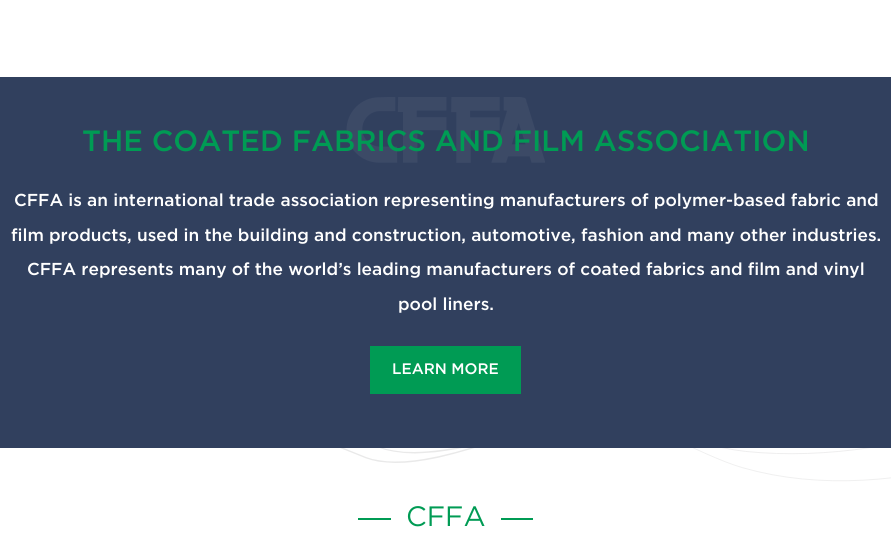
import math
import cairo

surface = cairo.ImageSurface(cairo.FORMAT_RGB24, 891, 544)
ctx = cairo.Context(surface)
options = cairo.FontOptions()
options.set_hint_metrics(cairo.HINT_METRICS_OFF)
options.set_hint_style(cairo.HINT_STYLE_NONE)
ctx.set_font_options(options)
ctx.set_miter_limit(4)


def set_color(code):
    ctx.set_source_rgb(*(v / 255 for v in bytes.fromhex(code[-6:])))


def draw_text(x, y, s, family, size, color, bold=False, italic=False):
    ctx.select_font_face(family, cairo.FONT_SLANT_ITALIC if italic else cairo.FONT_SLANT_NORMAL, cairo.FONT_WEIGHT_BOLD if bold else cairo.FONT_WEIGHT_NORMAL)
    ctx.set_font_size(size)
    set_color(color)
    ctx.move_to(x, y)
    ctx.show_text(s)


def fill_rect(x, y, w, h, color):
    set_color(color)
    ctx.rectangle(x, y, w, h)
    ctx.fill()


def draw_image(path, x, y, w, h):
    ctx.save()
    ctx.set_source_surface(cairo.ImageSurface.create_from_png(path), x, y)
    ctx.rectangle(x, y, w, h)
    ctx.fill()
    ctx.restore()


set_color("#ffffff")
ctx.paint()
fill_rect(0, 77, 891, 371, "#31405e")
draw_image("assets/img1.png", 346, 97, 199, 66)
draw_text(82, 151, "THE COATED FABRICS AND FILM ASSOCIATION", "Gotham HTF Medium", 29.3, "#009b54")
draw_text(14, 206, "CFFA is an international trade association representing manufacturers of polymer-based fabric and", "Gotham HTF Medium", 17.3, "#ffffff")
draw_text(11, 241, "film products, used in the building and construction, automotive, fashion and many other industries.", "Gotham HTF Medium", 17.3, "#ffffff")
draw_text(27, 275, "CFFA represents many of the world’s leading manufacturers of coated fabrics and film and vinyl", "Gotham HTF Medium", 17.3, "#ffffff")
draw_text(398, 310, "pool liners.", "Gotham HTF Medium", 17.3, "#ffffff")
fill_rect(370, 346, 151, 48, "#009b54")
draw_text(392, 374, "LEARN MORE", "Gotham HTF Medium", 15.25, "#ffffff")
draw_image("assets/img2.png", 340, 448, 551, 34)
fill_rect(358, 518, 175, 2, "#009b54")
fill_rect(391, 518, 110, 2, "#ffffff")
draw_text(406, 526, "CFFA", "Gotham HTF", 28, "#009b54")
surface.write_to_png("output.png")
